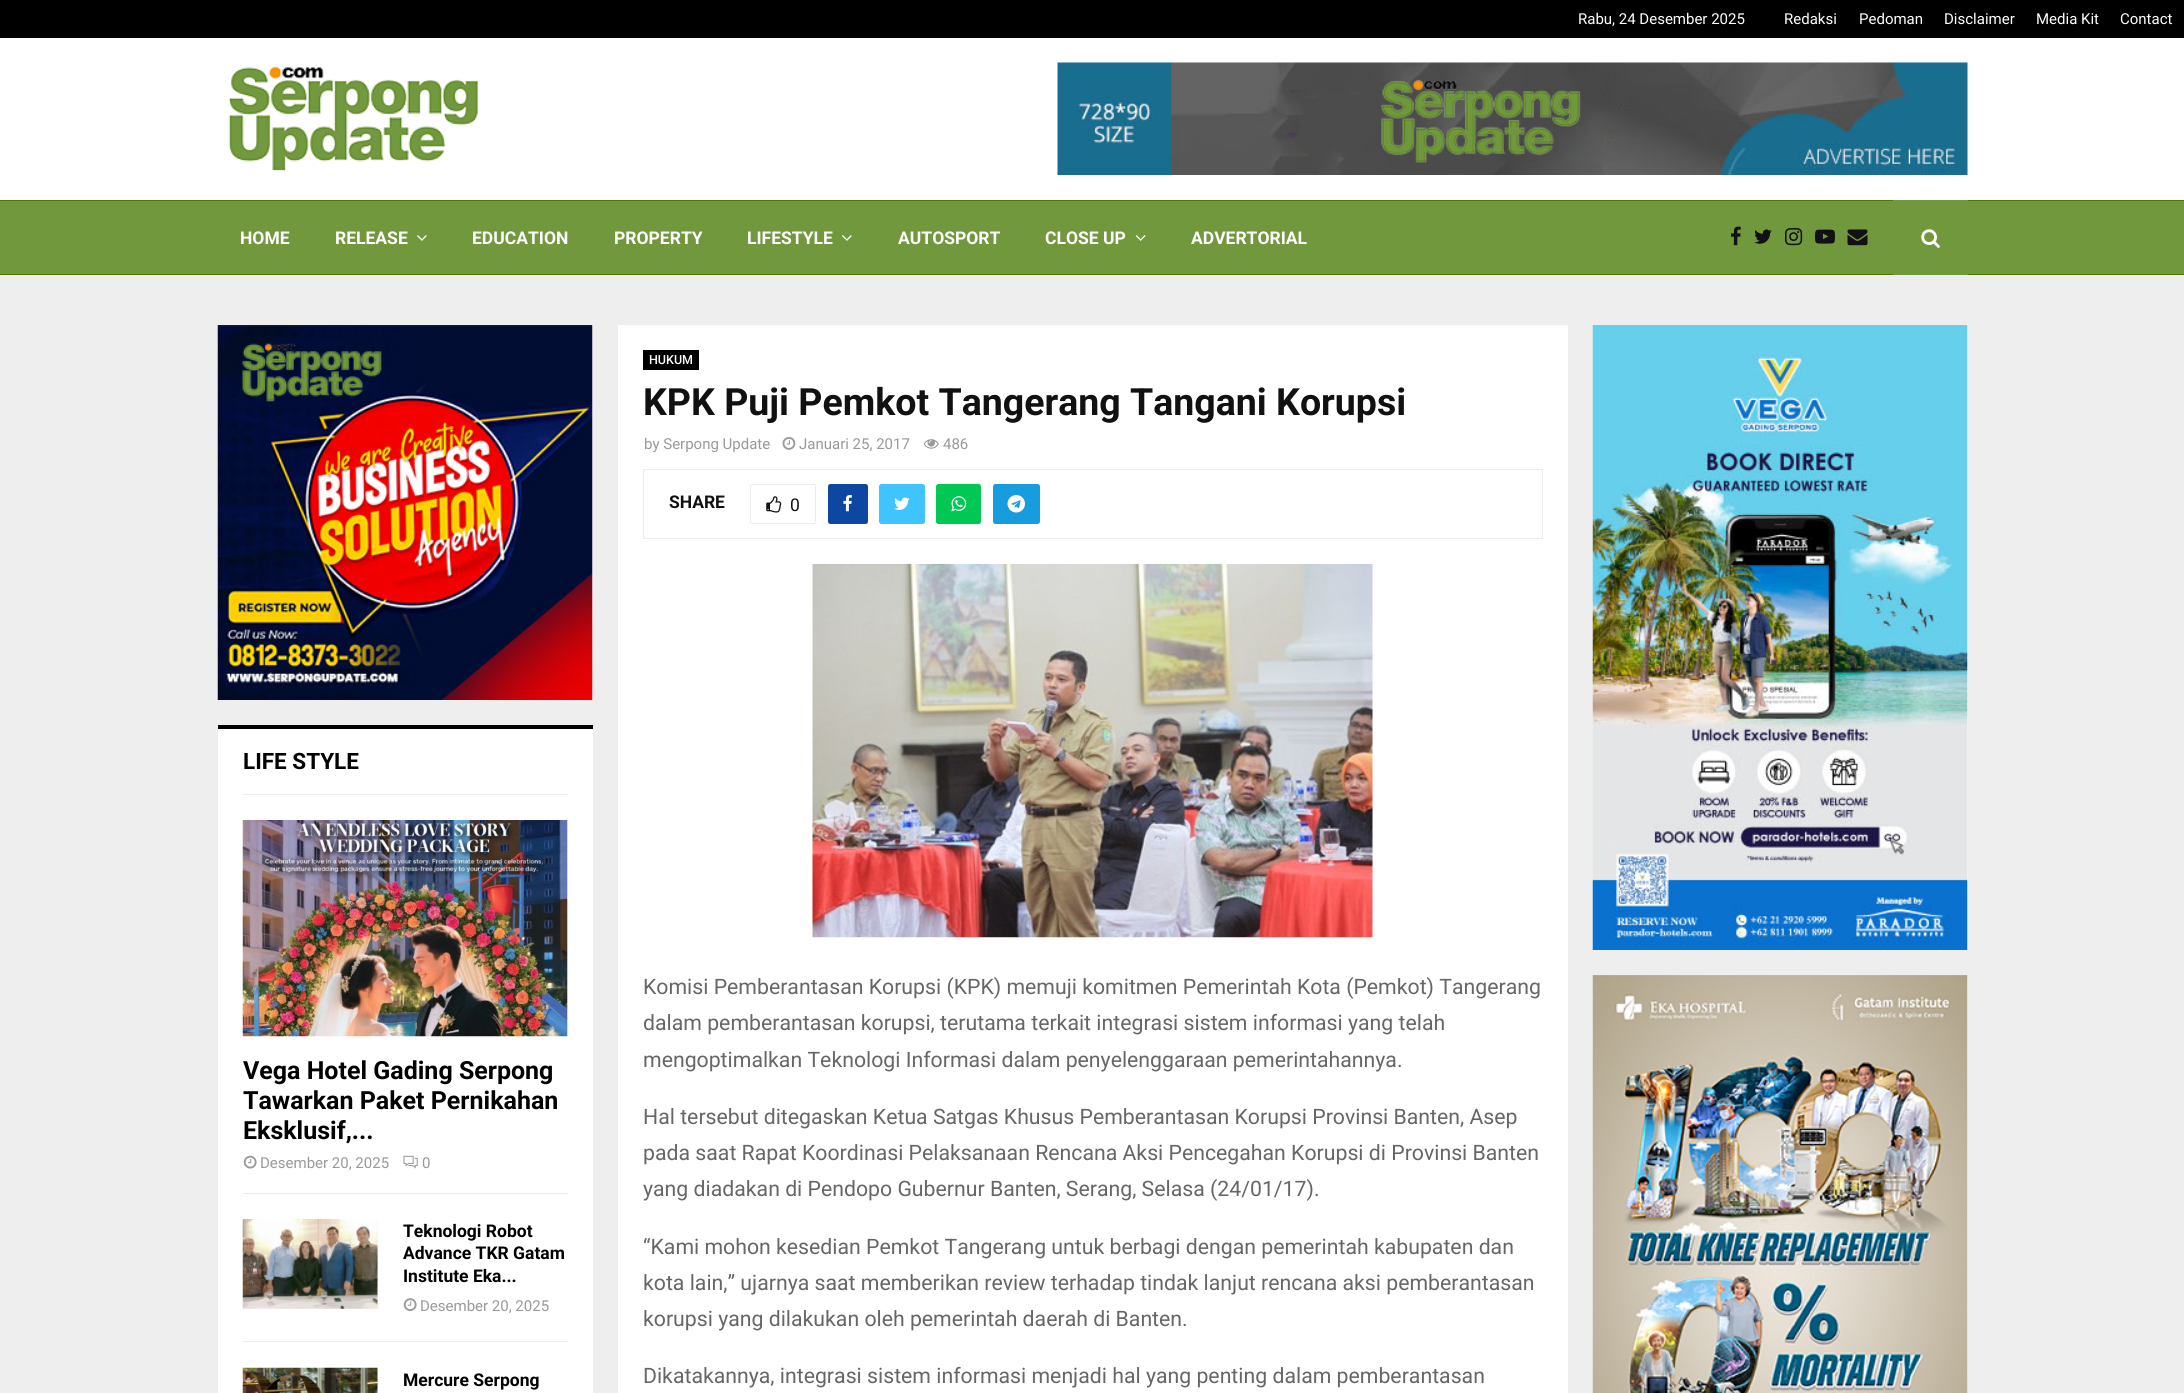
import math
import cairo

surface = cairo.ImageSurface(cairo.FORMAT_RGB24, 2184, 1393)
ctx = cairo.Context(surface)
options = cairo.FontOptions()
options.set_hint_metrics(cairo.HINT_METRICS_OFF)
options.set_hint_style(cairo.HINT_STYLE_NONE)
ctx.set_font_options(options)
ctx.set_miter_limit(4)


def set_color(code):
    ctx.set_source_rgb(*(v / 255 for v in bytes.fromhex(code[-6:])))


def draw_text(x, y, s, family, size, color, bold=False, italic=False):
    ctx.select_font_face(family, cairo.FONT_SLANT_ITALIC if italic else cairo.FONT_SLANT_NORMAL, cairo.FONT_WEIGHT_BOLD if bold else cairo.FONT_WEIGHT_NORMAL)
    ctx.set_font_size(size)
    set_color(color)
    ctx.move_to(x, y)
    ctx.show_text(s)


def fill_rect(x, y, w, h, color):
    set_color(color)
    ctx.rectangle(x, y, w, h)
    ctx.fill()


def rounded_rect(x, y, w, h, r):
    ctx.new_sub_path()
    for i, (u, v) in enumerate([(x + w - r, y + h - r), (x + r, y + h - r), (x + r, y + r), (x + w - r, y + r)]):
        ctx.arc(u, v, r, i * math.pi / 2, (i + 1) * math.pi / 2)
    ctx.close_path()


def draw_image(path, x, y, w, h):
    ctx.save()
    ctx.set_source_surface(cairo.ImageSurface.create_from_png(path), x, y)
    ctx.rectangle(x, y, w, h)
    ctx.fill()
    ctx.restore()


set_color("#eeeeee")
ctx.paint()
fill_rect(0, 0, 2184, 38, "#000000")
draw_text(1578, 24, "Rabu, 24 Desember 2025", "Roboto", 15, "#ffffff")
draw_text(1784, 24, "Redaksi", "Roboto", 15, "#ffffff")
draw_text(1859, 24, "Pedoman", "Roboto", 15, "#ffffff")
draw_text(1944, 24, "Disclaimer", "Roboto", 15, "#ffffff")
draw_text(2036, 24, "Media Kit", "Roboto", 15, "#ffffff")
draw_text(2120, 24, "Contact", "Roboto", 15, "#ffffff")
fill_rect(0, 38, 2184, 162, "#ffffff")
draw_image("assets/img1.png", 228, 66, 251, 105)
draw_image("assets/img2.png", 1057, 62, 911, 113)
fill_rect(0, 201, 2184, 73, "#72983e")
fill_rect(0, 274, 2184, 1, "#517700")
fill_rect(0, 200, 2184, 1, "#517700")
draw_text(240, 244, "HOME", "Roboto", 17.5, "#ffffff", bold=True)
draw_text(335, 244, "RELEASE", "Roboto", 17.5, "#ffffff", bold=True)
draw_image("assets/img3.png", 417, 235, 10, 6)
draw_text(472, 244, "EDUCATION", "Roboto", 17.5, "#ffffff", bold=True)
draw_text(614, 244, "PROPERTY", "Roboto", 17.5, "#ffffff", bold=True)
draw_text(747, 244, "LIFESTYLE", "Roboto", 17.5, "#ffffff", bold=True)
draw_image("assets/img3.png", 842, 235, 10, 6)
draw_text(898, 244, "AUTOSPORT", "Roboto", 17.5, "#ffffff", bold=True)
draw_text(1045, 244, "CLOSE UP", "Roboto", 17.5, "#ffffff", bold=True)
draw_image("assets/img4.png", 1135, 235, 11, 6)
draw_text(1191, 244, "ADVERTORIAL", "Roboto", 17.5, "#ffffff", bold=True)
draw_image("assets/img5.png", 1731, 226, 10, 20)
draw_image("assets/img6.png", 1754, 229, 18, 15)
draw_image("assets/img7.png", 1785, 228, 18, 18)
draw_image("assets/img8.png", 1815, 229, 20, 15)
draw_image("assets/img9.png", 1847, 229, 21, 17)
fill_rect(1893, 200, 75, 75, "#72983e")
draw_image("assets/img10.png", 1921, 229, 19, 19)
gradient = cairo.LinearGradient(968, 513, -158, 513)
gradient.add_color_stop_rgba(0, 0.961, 0.961, 0.961, 1)
gradient.add_color_stop_rgba(0.15, 0.937, 0.937, 0.937, 1)
gradient.add_color_stop_rgba(0.4, 0.961, 0.961, 0.961, 1)
gradient.add_color_stop_rgba(1, 0.961, 0.961, 0.961, 1)
ctx.set_source(gradient)
ctx.rectangle(592, 325, 1, 375)
ctx.fill()
draw_image("assets/img11.png", 217, 325, 376, 375)
fill_rect(218, 729, 375, 664, "#ffffff")
fill_rect(243, 794, 325, 1, "#ececec")
fill_rect(218, 725, 375, 4, "#000000")
draw_text(243, 769, "LIFE STYLE", "Roboto", 22.5, "#000000", bold=True)
fill_rect(243, 1193, 325, 1, "#ececec")
fill_rect(567, 820, 1, 216, "#f5f5f5")
draw_image("assets/img12.png", 242, 820, 326, 217)
draw_text(243, 1079, "Vega Hotel Gading Serpong", "Roboto", 25, "#000000", bold=True)
draw_text(243, 1109, "Tawarkan Paket Pernikahan", "Roboto", 25, "#000000", bold=True)
draw_text(243, 1139, "Eksklusif,...", "Roboto", 25, "#000000", bold=True)
draw_image("assets/img13.png", 243, 1155, 14, 14)
draw_text(260, 1168, "Desember 20, 2025", "Roboto", 15, "#999999")
draw_image("assets/img14.png", 403, 1155, 15, 14)
draw_text(422, 1168, "0", "Roboto", 15, "#999999")
fill_rect(243, 1341, 325, 1, "#ececec")
fill_rect(243, 1219, 135, 90, "#f5f5f5")
draw_image("assets/img15.png", 242, 1218, 136, 91)
draw_text(403, 1237, "Teknologi Robot", "Roboto", 17.5, "#000000", bold=True)
draw_text(403, 1259, "Advance TKR Gatam", "Roboto", 17.5, "#000000", bold=True)
draw_text(403, 1282, "Institute Eka...", "Roboto", 17.5, "#000000", bold=True)
draw_image("assets/img16.png", 403, 1298, 14, 13)
draw_text(420, 1311, "Desember 20, 2025", "Roboto", 15, "#999999")
fill_rect(377, 1368, 1, 25, "#f5f5f5")
draw_image("assets/img17.png", 242, 1367, 136, 26)
draw_text(403, 1386, "Mercure Serpong", "Roboto", 17.5, "#000000", bold=True)
fill_rect(618, 325, 950, 1068, "#ffffff")
fill_rect(643, 350, 56, 20, "#000000")
draw_text(649, 364, "HUKUM", "Roboto Medium", 12.5, "#ffffff")
draw_text(643, 415, "KPK Puji Pemkot Tangerang Tangani Korupsi", "Roboto", 37.5, "#111111", bold=True)
draw_text(644, 449, "by Serpong Update", "Roboto", 15, "#999999")
draw_image("assets/img18.png", 782, 437, 14, 13)
draw_text(799, 449, "Januari 25, 2017", "Roboto", 15, "#999999")
draw_image("assets/img19.png", 923, 439, 16, 10)
draw_text(943, 449, "486", "Roboto", 15, "#999999")
ctx.rectangle(643.5, 469.5, 899, 69)
set_color("#ececec")
ctx.set_line_width(1)
ctx.stroke()
draw_text(669, 508, "SHARE", "Roboto", 17.5, "#111111", bold=True)
rounded_rect(750.5, 484.5, 65, 39, 2)
set_color("#ececec")
ctx.stroke()
draw_image("assets/img20.png", 766, 496, 16, 17)
draw_text(790, 511, "0", "Roboto", 17.5, "#111111")
set_color("#0d47a1")
rounded_rect(828, 484, 40, 40, 2.5)
ctx.fill()
draw_image("assets/img21.png", 843, 495, 9, 17)
set_color("#40c4ff")
rounded_rect(879, 484, 46, 40, 2.5)
ctx.fill()
draw_image("assets/img22.png", 894, 497, 16, 13)
set_color("#00c853")
rounded_rect(936, 484, 45, 40, 2.5)
ctx.fill()
draw_image("assets/img23.png", 951, 496, 16, 16)
set_color("#179cde")
rounded_rect(993, 484, 47, 40, 2.5)
ctx.fill()
draw_image("assets/img24.png", 1007, 495, 18, 18)
draw_image("assets/img25.png", 812, 563, 561, 375)
draw_text(643, 994, "Komisi Pemberantasan Korupsi (KPK) memuji komitmen Pemerintah Kota (Pemkot) Tangerang", "Roboto", 21.25, "#666666")
draw_text(643, 1030, "dalam pemberantasan korupsi, terutama terkait integrasi sistem informasi yang telah", "Roboto", 21.25, "#666666")
draw_text(643, 1067, "mengoptimalkan Teknologi Informasi dalam penyelenggaraan pemerintahannya.", "Roboto", 21.25, "#666666")
draw_text(643, 1124, "Hal tersebut ditegaskan Ketua Satgas Khusus Pemberantasan Korupsi Provinsi Banten, Asep", "Roboto", 21.25, "#666666")
draw_text(643, 1160, "pada saat Rapat Koordinasi Pelaksanaan Rencana Aksi Pencegahan Korupsi di Provinsi Banten", "Roboto", 21.25, "#666666")
draw_text(643, 1196, "yang diadakan di Pendopo Gubernur Banten, Serang, Selasa (24/01/17).", "Roboto", 21.25, "#666666")
draw_text(643, 1254, "“Kami mohon kesedian Pemkot Tangerang untuk berbagi dengan pemerintah kabupaten dan", "Roboto", 21.25, "#666666")
draw_text(643, 1290, "kota lain,” ujarnya saat memberikan review terhadap tindak lanjut rencana aksi pemberantasan", "Roboto", 21.25, "#666666")
draw_text(643, 1326, "korupsi yang dilakukan oleh pemerintah daerah di Banten.", "Roboto", 21.25, "#666666")
draw_text(643, 1383, "Dikatakannya, integrasi sistem informasi menjadi hal yang penting dalam pemberantasan", "Roboto", 21.25, "#666666")
gradient = cairo.LinearGradient(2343, 638, 1218, 638)
gradient.add_color_stop_rgba(0, 0.961, 0.961, 0.961, 1)
gradient.add_color_stop_rgba(0.15, 0.937, 0.937, 0.937, 1)
gradient.add_color_stop_rgba(0.4, 0.961, 0.961, 0.961, 1)
gradient.add_color_stop_rgba(1, 0.961, 0.961, 0.961, 1)
ctx.set_source(gradient)
ctx.rectangle(1967, 325, 1, 625)
ctx.fill()
draw_image("assets/img26.png", 1592, 325, 376, 625)
gradient = cairo.LinearGradient(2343, 1288, 1218, 1288)
gradient.add_color_stop_rgba(0, 0.961, 0.961, 0.961, 1)
gradient.add_color_stop_rgba(0.15, 0.937, 0.937, 0.937, 1)
gradient.add_color_stop_rgba(0.4, 0.961, 0.961, 0.961, 1)
gradient.add_color_stop_rgba(1, 0.961, 0.961, 0.961, 1)
ctx.set_source(gradient)
ctx.rectangle(1967, 975, 1, 418)
ctx.fill()
draw_image("assets/img27.png", 1592, 975, 376, 418)
surface.write_to_png("output.png")
